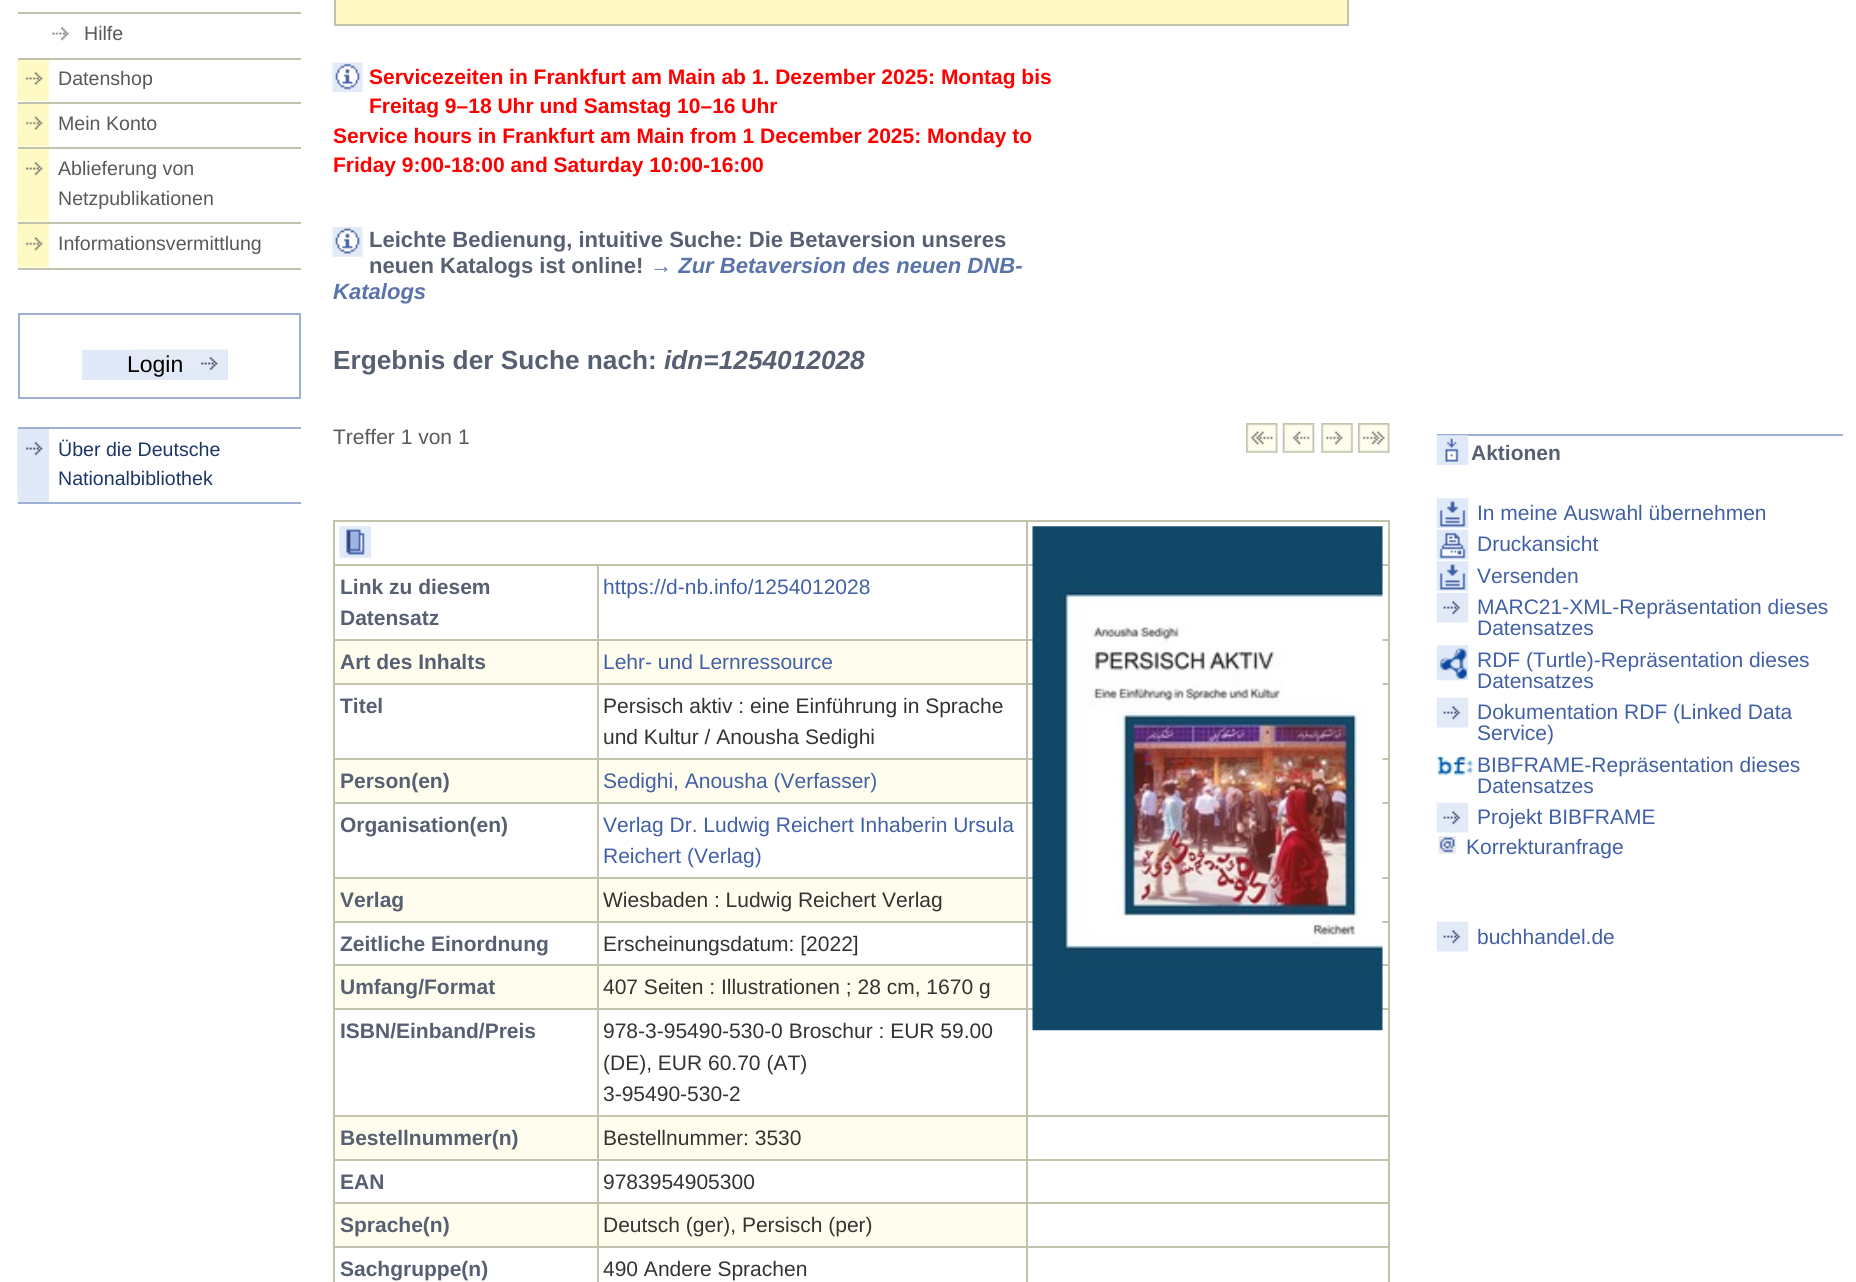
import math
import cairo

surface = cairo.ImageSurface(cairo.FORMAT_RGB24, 1856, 1282)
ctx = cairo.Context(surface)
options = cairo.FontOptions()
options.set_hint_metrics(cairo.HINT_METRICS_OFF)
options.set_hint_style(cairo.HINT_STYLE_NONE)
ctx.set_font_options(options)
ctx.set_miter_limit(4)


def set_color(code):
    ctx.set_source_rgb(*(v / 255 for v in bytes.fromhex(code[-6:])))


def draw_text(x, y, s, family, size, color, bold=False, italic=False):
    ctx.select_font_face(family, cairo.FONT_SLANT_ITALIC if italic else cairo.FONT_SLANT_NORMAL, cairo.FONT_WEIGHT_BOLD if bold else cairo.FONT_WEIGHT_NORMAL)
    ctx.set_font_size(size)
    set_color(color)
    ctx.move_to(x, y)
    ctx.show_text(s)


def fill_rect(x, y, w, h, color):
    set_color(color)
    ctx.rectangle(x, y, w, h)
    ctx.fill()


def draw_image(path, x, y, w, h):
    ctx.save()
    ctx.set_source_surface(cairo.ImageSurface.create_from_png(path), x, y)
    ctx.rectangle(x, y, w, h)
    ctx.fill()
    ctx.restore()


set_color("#ffffff")
ctx.paint()
fill_rect(18, 268, 283, 2, "#c1c3ae")
fill_rect(18, 12, 283, 2, "#c1c3ae")
draw_image("assets/img1.png", 52, 27, 17, 14)
draw_text(84, 40, "Hilfe", "Liberation Sans", 19.6, "#5c575b")
draw_image("assets/img2.png", 17, 59, 32, 42)
fill_rect(18, 58, 283, 2, "#c1c3ae")
draw_image("assets/img3.png", 17, 64, 26, 28)
draw_text(58, 85, "Datenshop", "Liberation Sans", 19.6, "#5c575b")
draw_image("assets/img4.png", 17, 102, 32, 45)
fill_rect(18, 102, 283, 2, "#c1c3ae")
draw_image("assets/img5.png", 17, 108, 26, 30)
draw_text(58, 130, "Mein Konto", "Liberation Sans", 19.6, "#5c575b")
draw_image("assets/img6.png", 17, 148, 32, 74)
fill_rect(18, 147, 283, 2, "#c1c3ae")
draw_image("assets/img7.png", 17, 153, 26, 60)
draw_text(58, 175, "Ablieferung von", "Liberation Sans", 19.6, "#5c575b")
draw_text(58, 205, "Netzpublikationen", "Liberation Sans", 19.6, "#5c575b")
draw_image("assets/img8.png", 17, 223, 32, 45)
fill_rect(18, 222, 283, 2, "#c1c3ae")
draw_image("assets/img9.png", 17, 229, 26, 30)
draw_text(58, 250, "Informationsvermittlung", "Liberation Sans", 19.6, "#5c575b")
ctx.rectangle(19, 314, 281, 84)
set_color("#9eadd6")
ctx.stroke()
fill_rect(82, 350, 146, 30, "#e0e9f8")
draw_image("assets/img10.png", 133, 349, 95, 21)
draw_text(127, 372, "Login", "Liberation Sans", 23, "#000000")
fill_rect(18, 502, 283, 2, "#9dafd5")
draw_image("assets/img11.png", 17, 428, 32, 74)
fill_rect(18, 427, 283, 2, "#9dafd5")
draw_image("assets/img12.png", 17, 434, 26, 59)
draw_text(58, 456, "Über die Deutsche", "Liberation Sans", 19.6, "#1c3667")
draw_text(58, 485, "Nationalbibliothek", "Liberation Sans", 19.6, "#1c3667")
set_color("#fffac3")
ctx.rectangle(335, -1, 1013, 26)
ctx.fill_preserve()
set_color("#c1c3ae")
ctx.stroke()
draw_image("assets/img13.png", 332, 62, 31, 31)
draw_text(369, 84, "Servicezeiten in Frankfurt am Main ab 1. Dezember 2025: Montag bis", "Liberation Sans", 21, "#ff0000", bold=True)
draw_text(369, 113, "Freitag 9–18 Uhr und Samstag 10–16 Uhr", "Liberation Sans", 21, "#ff0000", bold=True)
draw_text(333, 143, "Service hours in Frankfurt am Main from 1 December 2025: Monday to", "Liberation Sans", 21, "#ff0000", bold=True)
draw_text(333, 172, "Friday 9:00-18:00 and Saturday 10:00-16:00", "Liberation Sans", 21, "#ff0000", bold=True)
draw_image("assets/img14.png", 332, 227, 31, 30)
draw_text(369, 247, "Leichte Bedienung, intuitive Suche: Die Betaversion unseres", "Liberation Sans", 22.05, "#576072", bold=True)
draw_text(369, 273, "neuen Katalogs ist online!", "Liberation Sans", 22.05, "#576072", bold=True)
draw_text(650, 273, "→ Zur Betaversion des neuen DNB-", "Liberation Sans", 22.05, "#5a74a9", bold=True, italic=True)
draw_text(333, 299, "Katalogs", "Liberation Sans", 22.05, "#5a74a9", bold=True, italic=True)
draw_text(333, 369, "Ergebnis der Suche nach:", "Liberation Sans", 26.25, "#576072", bold=True)
draw_text(664, 369, "idn=1254012028", "Liberation Sans", 26.25, "#576072", bold=True, italic=True)
draw_text(333, 444, "Treffer 1 von 1", "Liberation Sans", 21, "#5c575b")
draw_image("assets/img15.png", 1246, 423, 32, 30)
draw_image("assets/img16.png", 1282, 423, 33, 30)
draw_image("assets/img17.png", 1321, 423, 32, 30)
draw_image("assets/img18.png", 1358, 423, 32, 30)
fill_rect(333, 520, 1057, 2, "#c1c3ad")
fill_rect(1388, 520, 2, 762, "#c1c3ad")
fill_rect(333, 520, 2, 762, "#c1c3ad")
draw_image("assets/img19.png", 339, 526, 32, 32)
fill_rect(333, 564, 1057, 2, "#c1c3ad")
fill_rect(333, 639, 1057, 2, "#c1c3ad")
fill_rect(333, 683, 1057, 2, "#c1c3ad")
fill_rect(333, 758, 1057, 2, "#c1c3ad")
fill_rect(333, 802, 1057, 2, "#c1c3ad")
fill_rect(333, 877, 1057, 2, "#c1c3ad")
fill_rect(333, 921, 1057, 2, "#c1c3ad")
fill_rect(333, 964, 1057, 2, "#c1c3ad")
fill_rect(333, 1008, 1057, 2, "#c1c3ad")
fill_rect(333, 1115, 1057, 2, "#c1c3ad")
fill_rect(333, 1159, 1057, 2, "#c1c3ad")
fill_rect(333, 1202, 1057, 2, "#c1c3ad")
fill_rect(333, 1246, 1057, 2, "#c1c3ad")
fill_rect(1026, 520, 2, 762, "#c1c3ad")
draw_image("assets/img20.png", 1032, 526, 351, 505)
draw_text(340, 594, "Link zu diesem", "Liberation Sans", 21, "#576072", bold=True)
draw_text(340, 625, "Datensatz", "Liberation Sans", 21, "#576072", bold=True)
draw_text(603, 594, "https://d-nb.info/1254012028", "Liberation Sans", 21, "#4160a5")
fill_rect(335, 641, 262, 42, "#fffded")
draw_text(340, 669, "Art des Inhalts", "Liberation Sans", 21, "#576072", bold=True)
fill_rect(599, 641, 427, 42, "#fffded")
draw_text(603, 669, "Lehr- und Lernressource", "Liberation Sans", 21, "#4160a5")
draw_text(340, 713, "Titel", "Liberation Sans", 21, "#576072", bold=True)
draw_text(603, 713, "Persisch aktiv : eine Einführung in Sprache", "Liberation Sans", 21, "#333333")
draw_text(603, 744, "und Kultur / Anousha Sedighi", "Liberation Sans", 21, "#333333")
fill_rect(335, 760, 262, 42, "#fffded")
draw_text(340, 788, "Person(en)", "Liberation Sans", 21, "#576072", bold=True)
fill_rect(599, 760, 427, 42, "#fffded")
draw_text(603, 788, "Sedighi, Anousha (Verfasser)", "Liberation Sans", 21, "#4160a5")
draw_text(340, 832, "Organisation(en)", "Liberation Sans", 21, "#576072", bold=True)
draw_text(603, 832, "Verlag Dr. Ludwig Reichert Inhaberin Ursula", "Liberation Sans", 21, "#4160a5")
draw_text(603, 863, "Reichert (Verlag)", "Liberation Sans", 21, "#4160a5")
fill_rect(335, 879, 262, 42, "#fffded")
draw_text(340, 907, "Verlag", "Liberation Sans", 21, "#576072", bold=True)
fill_rect(599, 879, 427, 42, "#fffded")
draw_text(603, 907, "Wiesbaden : Ludwig Reichert Verlag", "Liberation Sans", 21, "#333333")
draw_text(340, 951, "Zeitliche Einordnung", "Liberation Sans", 21, "#576072", bold=True)
draw_text(603, 951, "Erscheinungsdatum: [2022]", "Liberation Sans", 21, "#333333")
fill_rect(335, 966, 262, 42, "#fffded")
draw_text(340, 994, "Umfang/Format", "Liberation Sans", 21, "#576072", bold=True)
fill_rect(599, 966, 427, 42, "#fffded")
draw_text(603, 994, "407 Seiten : Illustrationen ; 28 cm, 1670 g", "Liberation Sans", 21, "#333333")
draw_text(340, 1038, "ISBN/Einband/Preis", "Liberation Sans", 21, "#576072", bold=True)
draw_text(603, 1038, "978-3-95490-530-0 Broschur : EUR 59.00", "Liberation Sans", 21, "#333333")
draw_text(603, 1070, "(DE), EUR 60.70 (AT)", "Liberation Sans", 21, "#333333")
draw_text(603, 1101, "3-95490-530-2", "Liberation Sans", 21, "#333333")
fill_rect(335, 1117, 262, 42, "#fffded")
draw_text(340, 1145, "Bestellnummer(n)", "Liberation Sans", 21, "#576072", bold=True)
fill_rect(599, 1117, 427, 42, "#fffded")
draw_text(603, 1145, "Bestellnummer: 3530", "Liberation Sans", 21, "#333333")
draw_text(340, 1189, "EAN", "Liberation Sans", 21, "#576072", bold=True)
draw_text(603, 1189, "9783954905300", "Liberation Sans", 21, "#333333")
fill_rect(335, 1204, 262, 42, "#fffded")
draw_text(340, 1232, "Sprache(n)", "Liberation Sans", 21, "#576072", bold=True)
fill_rect(599, 1204, 427, 42, "#fffded")
draw_text(603, 1232, "Deutsch (ger), Persisch (per)", "Liberation Sans", 21, "#333333")
draw_text(340, 1276, "Sachgruppe(n)", "Liberation Sans", 21, "#576072", bold=True)
fill_rect(597, 564, 2, 718, "#c1c3ad")
draw_text(603, 1276, "490 Andere Sprachen", "Liberation Sans", 21, "#333333")
fill_rect(1437, 434, 406, 2, "#9eadd6")
draw_image("assets/img21.png", 1436, 435, 33, 30)
draw_text(1471, 460, "Aktionen", "Liberation Sans", 21, "#576072", bold=True)
draw_image("assets/img22.png", 1436, 498, 33, 30)
draw_text(1477, 520, "In meine Auswahl übernehmen", "Liberation Sans", 21, "#4160a5")
draw_image("assets/img23.png", 1436, 529, 33, 31)
draw_text(1477, 551, "Druckansicht", "Liberation Sans", 21, "#4160a5")
draw_image("assets/img22.png", 1436, 561, 33, 30)
draw_text(1477, 583, "Versenden", "Liberation Sans", 21, "#4160a5")
draw_image("assets/img24.png", 1436, 592, 33, 31)
draw_text(1477, 614, "MARC21-XML-Repräsentation dieses", "Liberation Sans", 21, "#4160a5")
draw_text(1477, 635, "Datensatzes", "Liberation Sans", 21, "#4160a5")
draw_image("assets/img25.png", 1436, 645, 33, 36)
draw_text(1477, 667, "RDF (Turtle)-Repräsentation dieses", "Liberation Sans", 21, "#4160a5")
draw_text(1477, 688, "Datensatzes", "Liberation Sans", 21, "#4160a5")
draw_image("assets/img24.png", 1436, 697, 33, 31)
draw_text(1477, 719, "Dokumentation RDF (Linked Data", "Liberation Sans", 21, "#4160a5")
draw_text(1477, 740, "Service)", "Liberation Sans", 21, "#4160a5")
draw_image("assets/img26.png", 1436, 755, 38, 21)
draw_text(1477, 772, "BIBFRAME-Repräsentation dieses", "Liberation Sans", 21, "#4160a5")
draw_text(1477, 793, "Datensatzes", "Liberation Sans", 21, "#4160a5")
draw_image("assets/img24.png", 1436, 802, 33, 31)
draw_text(1477, 824, "Projekt BIBFRAME", "Liberation Sans", 21, "#4160a5")
draw_image("assets/img27.png", 1438, 836, 19, 18)
draw_text(1466, 854, "Korrekturanfrage", "Liberation Sans", 21, "#4160a5")
draw_image("assets/img24.png", 1436, 921, 33, 31)
draw_text(1477, 944, "buchhandel.de", "Liberation Sans", 21, "#4160a5")
surface.write_to_png("output.png")
